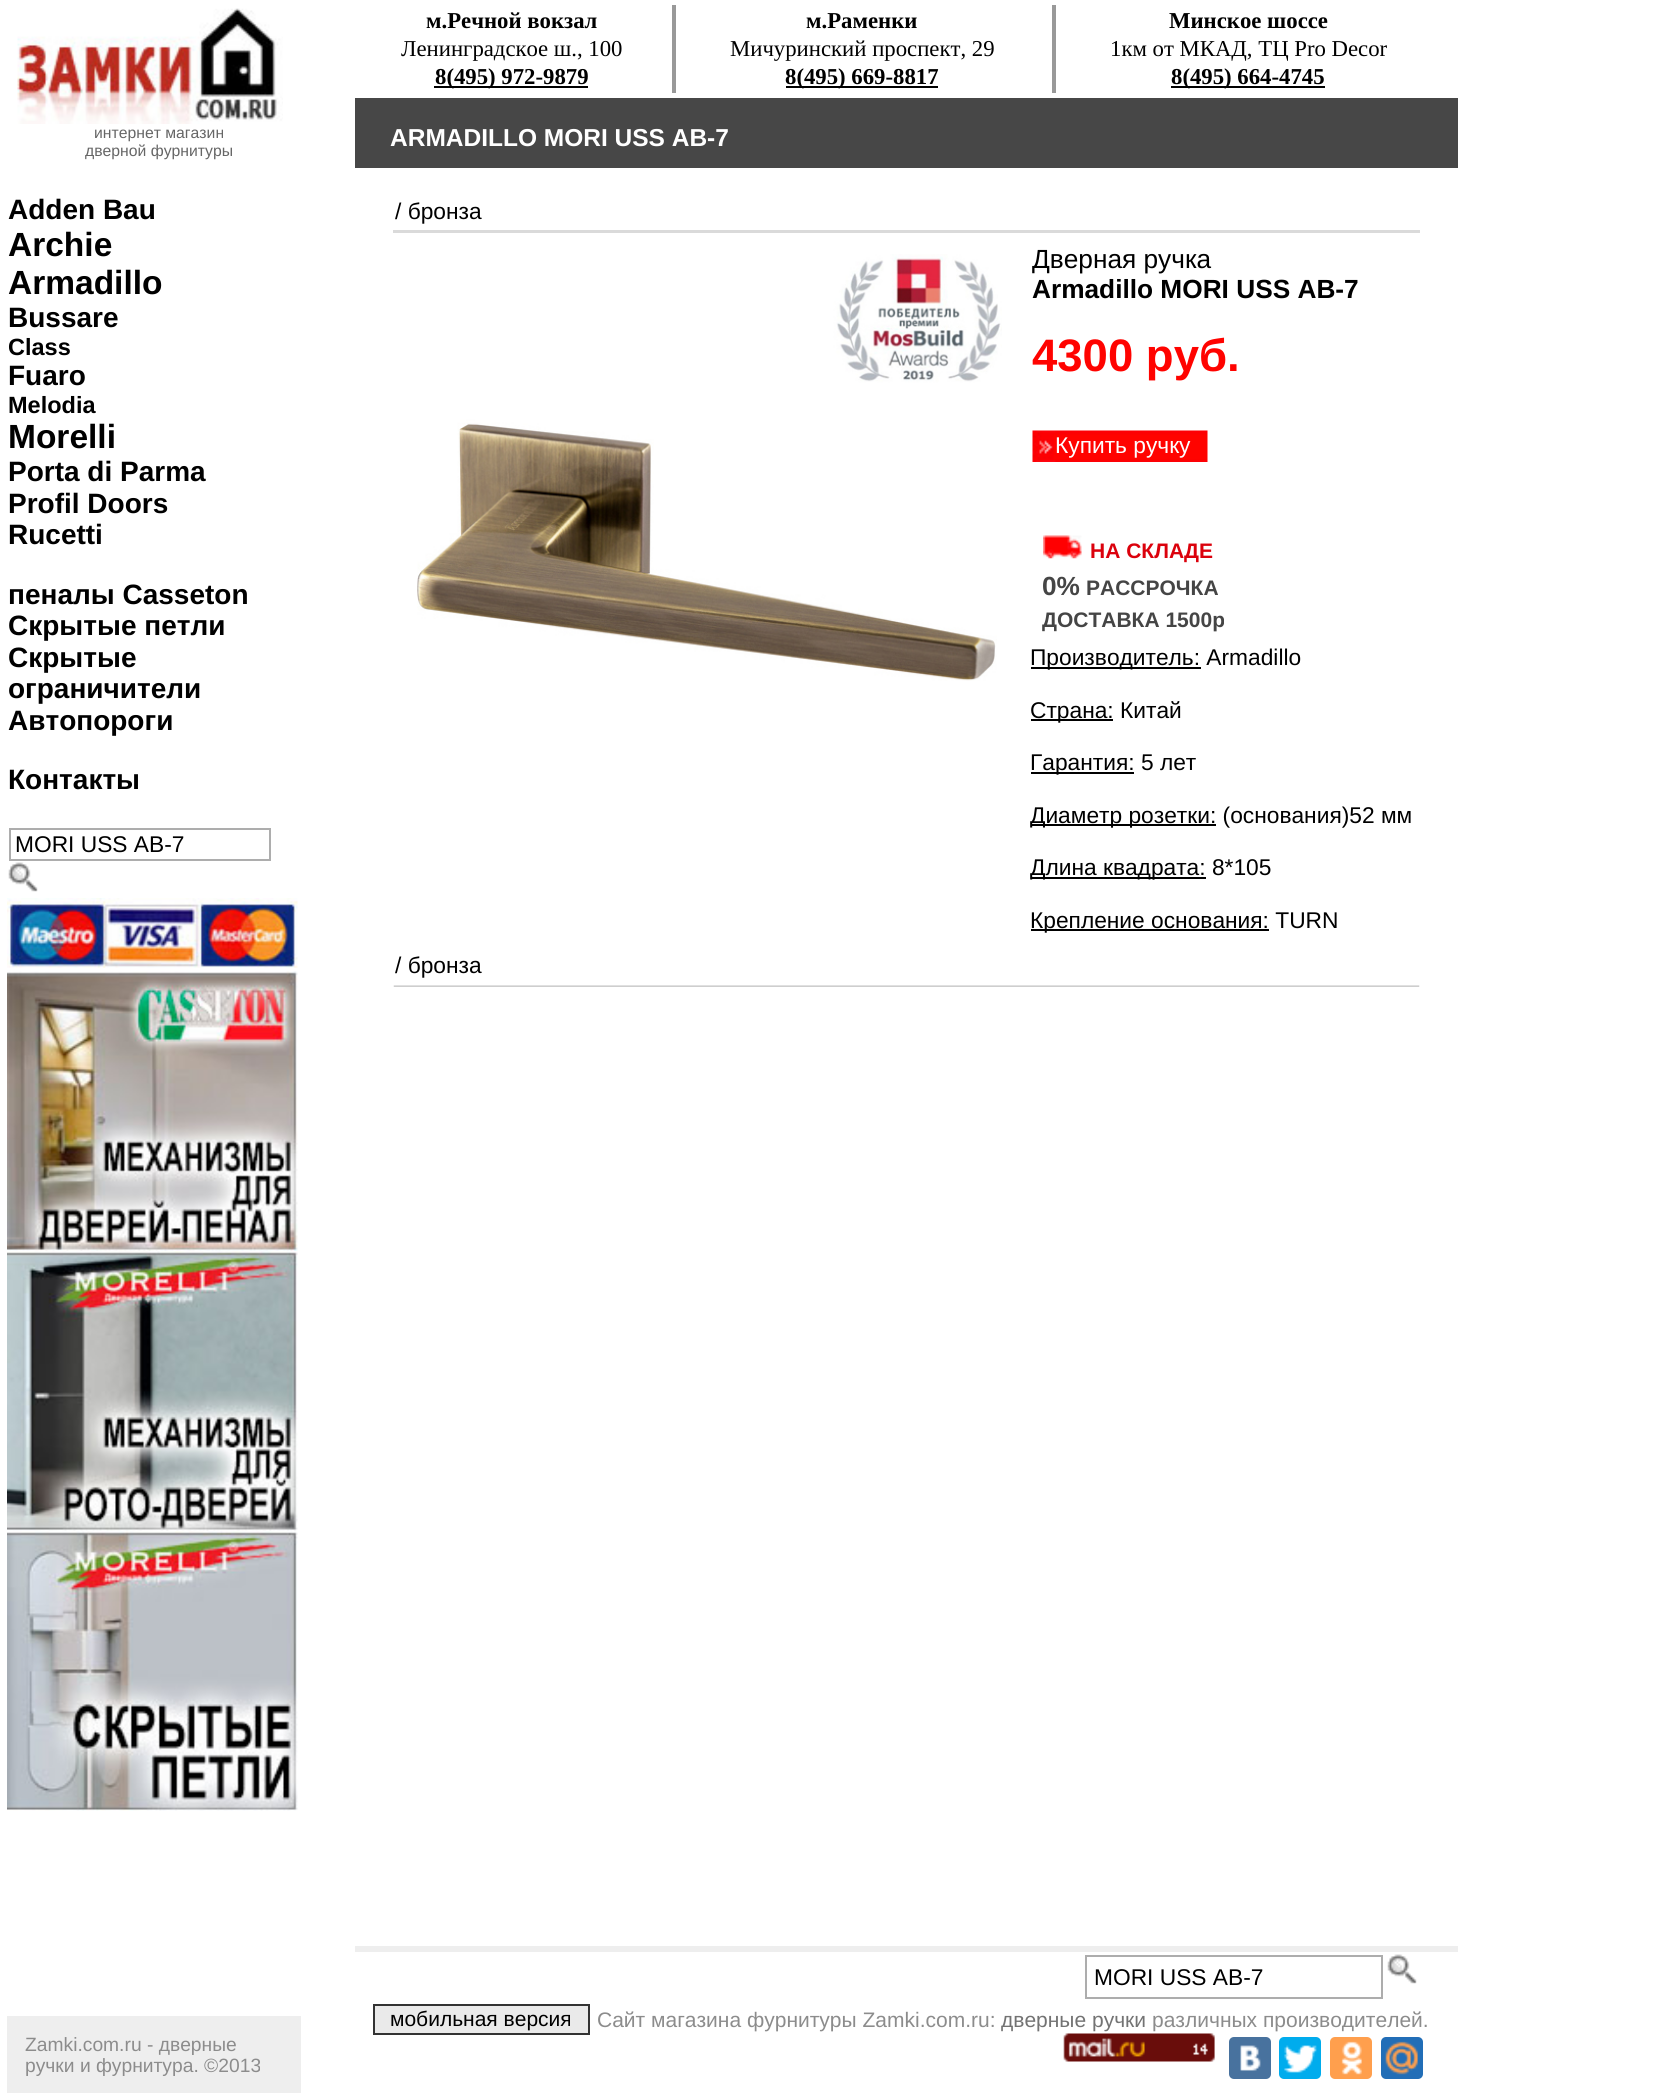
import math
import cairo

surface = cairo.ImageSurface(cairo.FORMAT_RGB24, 1663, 2093)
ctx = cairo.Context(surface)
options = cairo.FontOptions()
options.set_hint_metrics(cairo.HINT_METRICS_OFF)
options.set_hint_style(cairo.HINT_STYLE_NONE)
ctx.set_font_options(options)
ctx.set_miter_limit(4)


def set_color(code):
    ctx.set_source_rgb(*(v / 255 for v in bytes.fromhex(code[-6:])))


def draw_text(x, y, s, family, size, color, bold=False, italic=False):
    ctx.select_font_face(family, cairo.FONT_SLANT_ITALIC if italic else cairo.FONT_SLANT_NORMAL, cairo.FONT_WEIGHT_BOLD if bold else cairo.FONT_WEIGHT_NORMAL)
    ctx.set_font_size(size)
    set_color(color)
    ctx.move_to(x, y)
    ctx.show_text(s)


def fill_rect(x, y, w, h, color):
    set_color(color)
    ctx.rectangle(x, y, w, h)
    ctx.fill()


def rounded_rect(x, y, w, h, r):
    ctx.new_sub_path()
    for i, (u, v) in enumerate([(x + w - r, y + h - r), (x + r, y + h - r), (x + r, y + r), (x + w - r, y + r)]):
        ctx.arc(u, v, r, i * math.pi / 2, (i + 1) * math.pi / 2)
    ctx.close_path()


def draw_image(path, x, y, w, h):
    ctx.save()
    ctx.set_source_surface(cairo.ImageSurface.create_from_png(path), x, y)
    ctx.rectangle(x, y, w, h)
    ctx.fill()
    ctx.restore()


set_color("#ffffff")
ctx.paint()
draw_image("assets/img1.png", 17, 8, 266, 116)
draw_text(94, 138, "интернет магазин", "Liberation Sans", 15.75, "#666666")
draw_text(85, 156, "дверной фурнитуры", "Liberation Sans", 15.75, "#666666")
draw_text(8, 219, "Adden Bau", "Liberation Sans", 28, "#000000", bold=True)
draw_text(8, 256, "Archie", "Liberation Sans", 33.5, "#000000", bold=True)
draw_text(8, 294, "Armadillo", "Liberation Sans", 33.5, "#000000", bold=True)
draw_text(8, 327, "Bussare", "Liberation Sans", 28, "#000000", bold=True)
draw_text(8, 355, "Class", "Liberation Sans", 23.5, "#000000", bold=True)
draw_text(8, 385, "Fuaro", "Liberation Sans", 28, "#000000", bold=True)
draw_text(8, 413, "Melodia", "Liberation Sans", 23.5, "#000000", bold=True)
draw_text(8, 448, "Morelli", "Liberation Sans", 33.5, "#000000", bold=True)
draw_text(8, 481, "Porta di Parma", "Liberation Sans", 28, "#000000", bold=True)
draw_text(8, 513, "Profil Doors", "Liberation Sans", 28, "#000000", bold=True)
draw_text(8, 544, "Rucetti", "Liberation Sans", 28, "#000000", bold=True)
draw_text(8, 604, "пеналы Casseton", "Liberation Sans", 28, "#000000", bold=True)
draw_text(8, 635, "Скрытые петли", "Liberation Sans", 28, "#000000", bold=True)
draw_text(8, 667, "Скрытые", "Liberation Sans", 28, "#000000", bold=True)
draw_text(8, 698, "ограничители", "Liberation Sans", 28, "#000000", bold=True)
draw_text(8, 730, "Автопороги", "Liberation Sans", 28, "#000000", bold=True)
draw_text(8, 789, "Контакты", "Liberation Sans", 28, "#000000", bold=True)
ctx.rectangle(10, 829, 260, 31)
set_color("#adadad")
ctx.stroke()
draw_text(15, 852, "MORI USS AB-7", "Liberation Sans", 22.75, "#000000")
draw_image("assets/img2.png", 8, 862, 30, 30)
draw_image("assets/img3.png", 7, 898, 291, 70)
draw_image("assets/img4.png", 7, 971, 291, 281)
draw_image("assets/img5.png", 7, 1251, 291, 280)
draw_image("assets/img6.png", 7, 1531, 291, 280)
fill_rect(7, 2016, 294, 77, "#eeeeee")
draw_text(25, 2051, "Zamki.com.ru - дверные", "Liberation Sans", 19.25, "#8c8c8c")
draw_text(25, 2072, "ручки и фурнитура. ©2013", "Liberation Sans", 19.25, "#8c8c8c")
fill_rect(672, 5, 4, 88, "#999999")
draw_text(426, 28, "м.Речной вокзал", "Liberation Serif", 22.75, "#000000", bold=True)
draw_text(401, 56, "Ленинградское ш., 100", "Liberation Serif", 22.75, "#000000")
fill_rect(434, 86, 154, 2, "#000000")
draw_text(435, 84, "8(495) 972-9879", "Liberation Serif", 22.75, "#000000", bold=True)
fill_rect(1052, 5, 4, 88, "#999999")
draw_text(806, 28, "м.Раменки", "Liberation Serif", 22.75, "#000000", bold=True)
draw_text(730, 56, "Мичуринский проспект, 29", "Liberation Serif", 22.75, "#000000")
fill_rect(786, 86, 152, 2, "#000000")
draw_text(785, 84, "8(495) 669-8817", "Liberation Serif", 22.75, "#000000", bold=True)
draw_text(1169, 28, "Минское шоссе", "Liberation Serif", 22.75, "#000000", bold=True)
draw_text(1110, 56, "1км от МКАД, ТЦ Pro Decor", "Liberation Serif", 22.75, "#000000")
fill_rect(1171, 86, 154, 2, "#000000")
draw_text(1171, 84, "8(495) 664-4745", "Liberation Serif", 22.75, "#000000", bold=True)
fill_rect(355, 98, 1103, 70, "#474747")
draw_text(390, 146, "ARMADILLO MORI USS AB-7", "Liberation Sans", 24.5, "#ffffff", bold=True)
fill_rect(393, 230, 1027, 3, "#dadada")
draw_text(395, 219, "/ бронза", "Liberation Sans", 22.75, "#000000")
draw_image("assets/img7.png", 417, 254, 585, 427)
draw_text(1032, 268, "Дверная ручка", "Liberation Sans", 26.25, "#000000")
draw_text(1032, 298, "Armadillo MORI USS AB-7", "Liberation Sans", 26.25, "#000000", bold=True)
draw_text(1032, 371, "4300 руб.", "Liberation Sans", 45.5, "#ff0300", bold=True)
draw_image("assets/img8.png", 1032, 430, 176, 32)
draw_text(1055, 453, "Купить ручку", "Liberation Sans", 22.75, "#ffffff")
draw_image("assets/img9.png", 1043, 535, 39, 24)
draw_text(1090, 558, "НА СКЛАДЕ", "Liberation Sans", 21, "#db010c", bold=True)
draw_text(1042, 595, "0%", "Liberation Sans", 26.25, "#454545", bold=True)
draw_text(1086, 595, "РАССРОЧКА", "Liberation Sans", 21, "#454545", bold=True)
draw_text(1042, 627, "ДОСТАВКА 1500р", "Liberation Sans", 21, "#454545", bold=True)
fill_rect(1031, 667, 170, 2, "#000000")
draw_text(1030, 665, "Производитель: Armadillo", "Liberation Sans", 22.75, "#000000")
fill_rect(1031, 719, 82, 2, "#000000")
draw_text(1030, 718, "Страна: Китай", "Liberation Sans", 22.75, "#000000")
fill_rect(1031, 772, 103, 2, "#000000")
draw_text(1030, 770, "Гарантия: 5 лет", "Liberation Sans", 22.75, "#000000")
fill_rect(1031, 824, 185, 2, "#000000")
draw_text(1030, 823, "Диаметр розетки: (основания)52 мм", "Liberation Sans", 22.75, "#000000")
fill_rect(1031, 877, 175, 2, "#000000")
draw_text(1030, 875, "Длина квадрата: 8*105", "Liberation Sans", 22.75, "#000000")
fill_rect(1031, 929, 238, 2, "#000000")
draw_text(1030, 928, "Крепление основания: TURN", "Liberation Sans", 22.75, "#000000")
draw_image("assets/img10.png", 393, 985, 1027, 2)
draw_text(395, 973, "/ бронза", "Liberation Sans", 22.75, "#000000")
fill_rect(355, 1946, 1103, 6, "#eeeeee")
set_color("#eaeaea")
ctx.rectangle(374, 2005, 215, 29)
ctx.fill_preserve()
set_color("#333333")
ctx.stroke()
draw_text(390, 2026, "мобильная версия", "Liberation Sans", 21, "#000000")
ctx.rectangle(1086, 1956, 296, 42)
set_color("#adadad")
ctx.stroke()
draw_text(1094, 1985, "MORI USS AB-7", "Liberation Sans", 22.75, "#000000")
draw_image("assets/img11.png", 1387, 1954, 30, 30)
draw_text(597, 2027, "Сайт магазина фурнитуры Zamki.com.ru:", "Liberation Sans", 21, "#8c8c8c")
draw_text(1001, 2027, "дверные ручки", "Liberation Sans", 21, "#737373")
draw_text(1152, 2027, "различных производителей.", "Liberation Sans", 21, "#8c8c8c")
draw_image("assets/img12.png", 1063, 2031, 152, 31)
set_color("#48729e")
rounded_rect(1229, 2037, 42, 42, 5)
ctx.fill()
draw_image("assets/img13.png", 1240, 2045, 21, 26)
set_color("#00aced")
rounded_rect(1279, 2037, 42, 42, 5)
ctx.fill()
draw_image("assets/img14.png", 1284, 2045, 33, 28)
set_color("#ff9f4d")
rounded_rect(1330, 2037, 42, 42, 5)
ctx.fill()
draw_image("assets/img15.png", 1341, 2041, 21, 34)
set_color("#226eb7")
rounded_rect(1381, 2037, 42, 42, 5)
ctx.fill()
draw_image("assets/img16.png", 1385, 2041, 33, 34)
surface.write_to_png("output.png")
